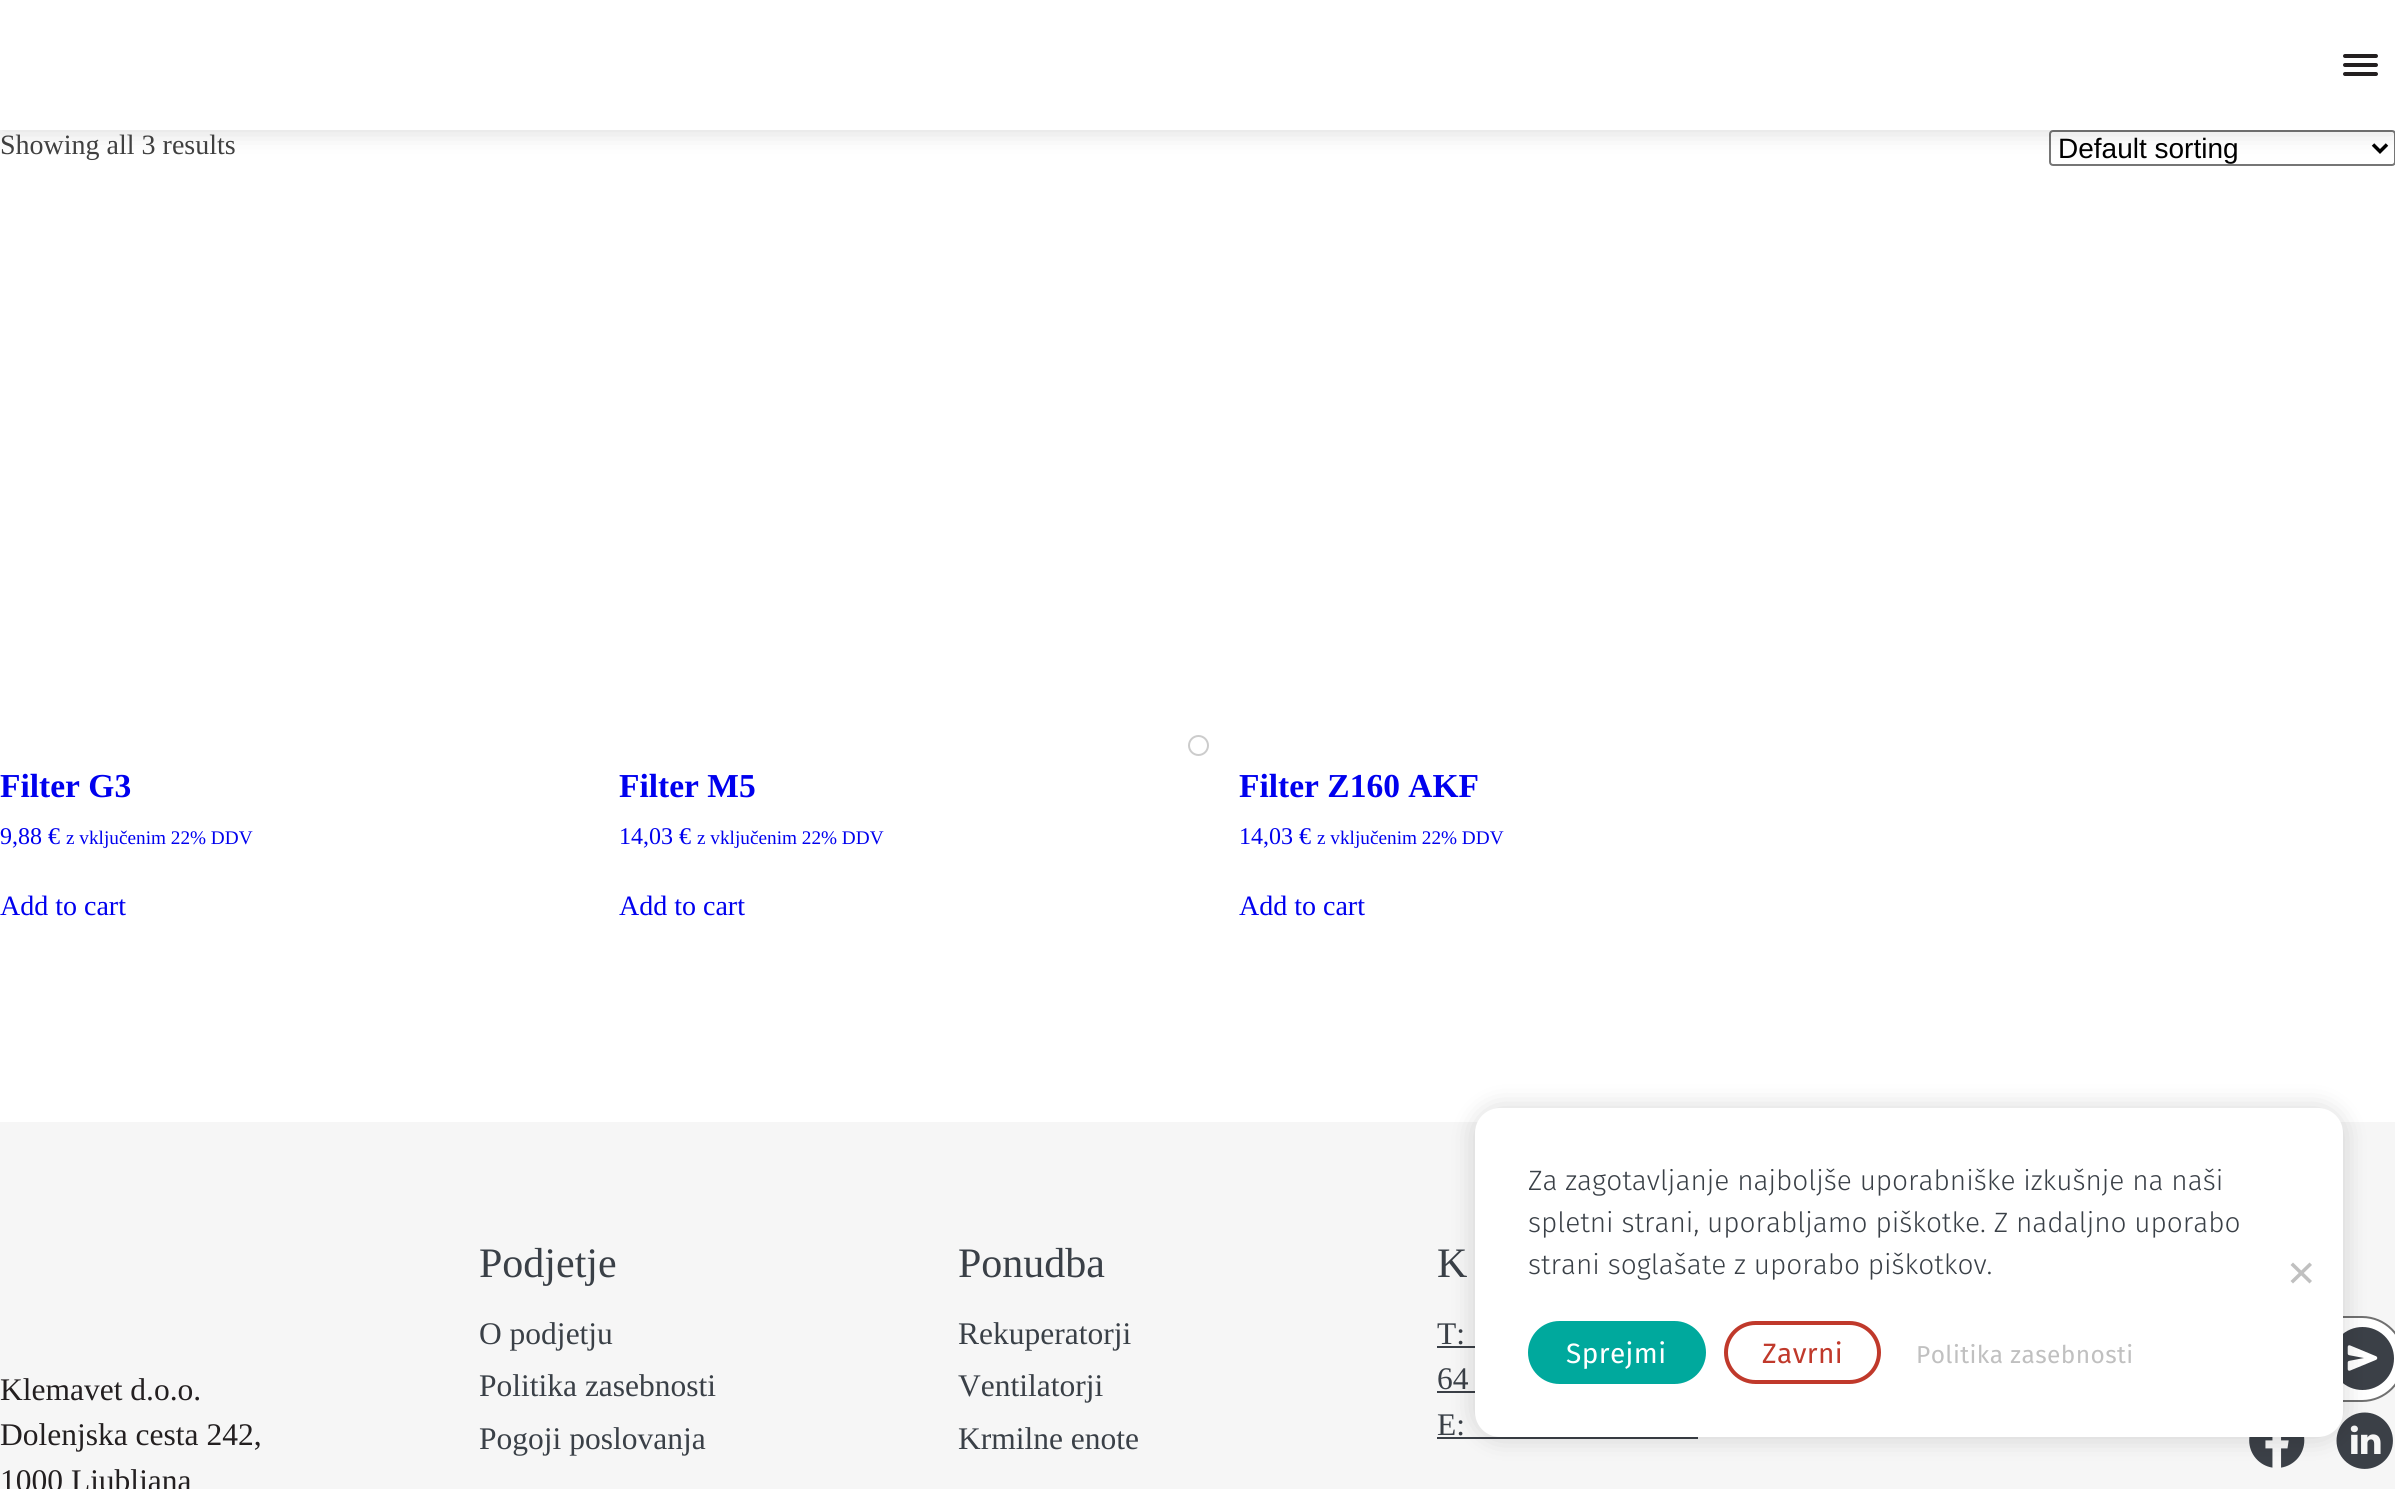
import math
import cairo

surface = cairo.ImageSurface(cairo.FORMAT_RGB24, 2395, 1489)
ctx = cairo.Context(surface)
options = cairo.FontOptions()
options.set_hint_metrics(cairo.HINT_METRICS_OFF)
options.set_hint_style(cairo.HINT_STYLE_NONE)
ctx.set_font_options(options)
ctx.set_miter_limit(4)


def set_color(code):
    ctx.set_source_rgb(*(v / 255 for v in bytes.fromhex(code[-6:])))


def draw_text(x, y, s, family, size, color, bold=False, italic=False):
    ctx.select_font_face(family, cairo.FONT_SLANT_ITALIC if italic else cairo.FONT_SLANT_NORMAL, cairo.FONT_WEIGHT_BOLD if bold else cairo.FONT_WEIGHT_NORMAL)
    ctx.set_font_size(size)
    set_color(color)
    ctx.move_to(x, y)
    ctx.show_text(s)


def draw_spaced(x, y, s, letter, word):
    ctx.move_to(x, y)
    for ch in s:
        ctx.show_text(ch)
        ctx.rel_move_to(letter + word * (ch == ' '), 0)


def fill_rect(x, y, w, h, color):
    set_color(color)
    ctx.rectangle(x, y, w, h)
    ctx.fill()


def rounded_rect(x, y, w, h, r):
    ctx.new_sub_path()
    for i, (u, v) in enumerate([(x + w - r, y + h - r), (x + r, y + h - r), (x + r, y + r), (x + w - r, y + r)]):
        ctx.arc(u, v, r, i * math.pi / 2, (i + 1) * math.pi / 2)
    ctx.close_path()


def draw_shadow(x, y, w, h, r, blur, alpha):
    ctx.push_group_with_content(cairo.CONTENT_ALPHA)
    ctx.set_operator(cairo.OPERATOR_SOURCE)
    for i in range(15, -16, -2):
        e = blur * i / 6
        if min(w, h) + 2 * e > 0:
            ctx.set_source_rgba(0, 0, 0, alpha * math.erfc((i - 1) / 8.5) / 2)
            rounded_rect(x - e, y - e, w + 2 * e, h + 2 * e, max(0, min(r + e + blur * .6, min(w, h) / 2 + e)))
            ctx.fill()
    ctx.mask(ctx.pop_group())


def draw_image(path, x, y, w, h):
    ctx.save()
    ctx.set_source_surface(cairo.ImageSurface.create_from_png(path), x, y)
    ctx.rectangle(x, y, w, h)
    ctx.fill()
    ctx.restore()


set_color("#ffffff")
ctx.paint()
rounded_rect(2050, 131, 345, 34, 3)
set_color("#767676")
ctx.stroke()
ctx.new_path()
ctx.move_to(2373, 144.5)
ctx.line_to(2380, 151.5)
ctx.line_to(2387, 144.5)
set_color("#000000")
ctx.set_line_width(3.5)
ctx.stroke()
set_color("#000000")
draw_shadow(0, 0, 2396, 130, 0, 13, 0.16)
fill_rect(0, 0, 2395, 130, "#ffffff")
set_color("#231f20")
rounded_rect(2343, 54, 35, 4, 2)
ctx.fill()
rounded_rect(2343, 63, 35, 4, 2)
ctx.fill()
rounded_rect(2343, 72, 35, 4, 2)
ctx.fill()
draw_text(0, 154, "Showing all 3 results", "Liberation Serif", 28, "#404040")
draw_text(2058, 158, "Default sorting", "Liberation Sans", 28, "#000000")
draw_text(0, 797, "Filter G3", "Liberation Serif", 33.5, "#0000ee", bold=True)
draw_text(0, 844, "9,88 €", "Liberation Serif", 24, "#0000ee")
draw_text(66, 844, "z vključenim 22% DDV", "Liberation Serif", 19.25, "#0000ee")
draw_text(0, 915, "Add to cart", "Liberation Serif", 28, "#0000ee")
draw_text(619, 797, "Filter M5", "Liberation Serif", 33.5, "#0000ee", bold=True)
draw_text(619, 844, "14,03 €", "Liberation Serif", 24, "#0000ee")
draw_text(697, 844, "z vključenim 22% DDV", "Liberation Serif", 19.25, "#0000ee")
draw_text(619, 915, "Add to cart", "Liberation Serif", 28, "#0000ee")
draw_text(1239, 797, "Filter Z160 AKF", "Liberation Serif", 33.5, "#0000ee", bold=True)
draw_text(1239, 844, "14,03 €", "Liberation Serif", 24, "#0000ee")
draw_text(1317, 844, "z vključenim 22% DDV", "Liberation Serif", 19.25, "#0000ee")
draw_text(1239, 915, "Add to cart", "Liberation Serif", 28, "#0000ee")
ctx.new_path()
ctx.arc(1198.5, 745.5, 9.5, 0, 2 * math.pi)
set_color("#cccccc")
ctx.set_line_width(2)
ctx.stroke()
fill_rect(0, 1122, 2395, 367, "#f6f6f6")
draw_text(0, 1400, "Klemavet d.o.o.", "Liberation Serif", 31.5, "#231f20")
draw_text(0, 1445, "Dolenjska cesta 242,", "Liberation Serif", 31.5, "#231f20")
draw_text(0, 1491, "1000 Ljubljana", "Liberation Serif", 31.5, "#231f20")
draw_text(479, 1277, "Podjetje", "Liberation Serif", 42, "#3a4047")
draw_text(479, 1344, "O podjetju", "Liberation Serif", 31.5, "#3a4047")
draw_text(479, 1396, "Politika zasebnosti", "Liberation Serif", 31.5, "#3a4047")
draw_text(479, 1449, "Pogoji poslovanja", "Liberation Serif", 31.5, "#3a4047")
draw_text(958, 1277, "Ponudba", "Liberation Serif", 42, "#3a4047")
draw_text(958, 1344, "Rekuperatorji", "Liberation Serif", 31.5, "#3a4047")
draw_text(958, 1396, "Ventilatorji", "Liberation Serif", 31.5, "#3a4047")
draw_text(958, 1449, "Krmilne enote", "Liberation Serif", 31.5, "#3a4047")
draw_text(1437, 1277, "K", "Liberation Serif", 42, "#3a4047")
draw_text(1437, 1344, "T:", "Liberation Serif", 31.5, "#3a4047")
fill_rect(1437, 1346, 38, 2, "#3b4047")
draw_text(1437, 1389, "64", "Liberation Serif", 31.5, "#3a4047")
fill_rect(1437, 1391, 38, 2, "#3b4047")
draw_text(1437, 1435, "E:", "Liberation Serif", 31.5, "#3a4047")
fill_rect(1437, 1437, 261, 2, "#3b4047")
set_color("#ffffff")
rounded_rect(1882, 1317, 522, 84, 42)
ctx.fill_preserve()
set_color("#707070")
ctx.stroke()
set_color("#3b4047")
ctx.arc(2362.5, 1358.5, 31.5, 0, 2 * math.pi)
ctx.fill()
draw_image("assets/img1.png", 2347, 1345, 31, 26)
draw_image("assets/img2.png", 2249, 1437, 56, 31)
draw_image("assets/img3.png", 2336, 1412, 57, 57)
set_color("#000000")
draw_shadow(1475, 1108, 868, 329, 25, 13, 0.16)
set_color("#ffffff")
rounded_rect(1475, 1108, 868, 329, 25)
ctx.fill()
draw_text(1528, 1190, "Za zagotavljanje najboljše uporabniške izkušnje na naši", "Fira Sans Light", 28, "#3a4047")
draw_text(1528, 1232, "spletni strani, uporabljamo piškotke. Z nadaljno uporabo", "Fira Sans Light", 28, "#3a4047")
draw_text(1528, 1274, "strani soglašate z uporabo piškotkov.", "Fira Sans Light", 28, "#3a4047")
set_color("#c0c0c0")
ctx.new_path()
ctx.move_to(2309.5, 1262.5)
ctx.line_to(2312, 1265)
ctx.line_to(2293, 1283.5)
ctx.line_to(2290.5, 1281)
ctx.close_path()
ctx.fill()
ctx.new_path()
ctx.move_to(2290.5, 1265)
ctx.line_to(2293, 1262.5)
ctx.line_to(2312, 1281)
ctx.line_to(2309.5, 1283.5)
ctx.close_path()
ctx.fill()
set_color("#00a99d")
rounded_rect(1530, 1323, 174, 59, 29.5)
ctx.fill_preserve()
ctx.set_line_width(4)
ctx.stroke()
ctx.select_font_face("Fira Sans")
set_color("#ffffff")
draw_spaced(1566, 1363, "Sprejmi", 0.4, 0)
rounded_rect(1726, 1323, 153, 59, 29.5)
set_color("#c0392b")
ctx.stroke()
draw_spaced(1762, 1363, "Zavrni", 0.4, 0)
ctx.set_font_size(24.5)
set_color("#c0c0c0")
draw_spaced(1916, 1363, "Politika zasebnosti", 0.4, 0)
surface.write_to_png("output.png")
